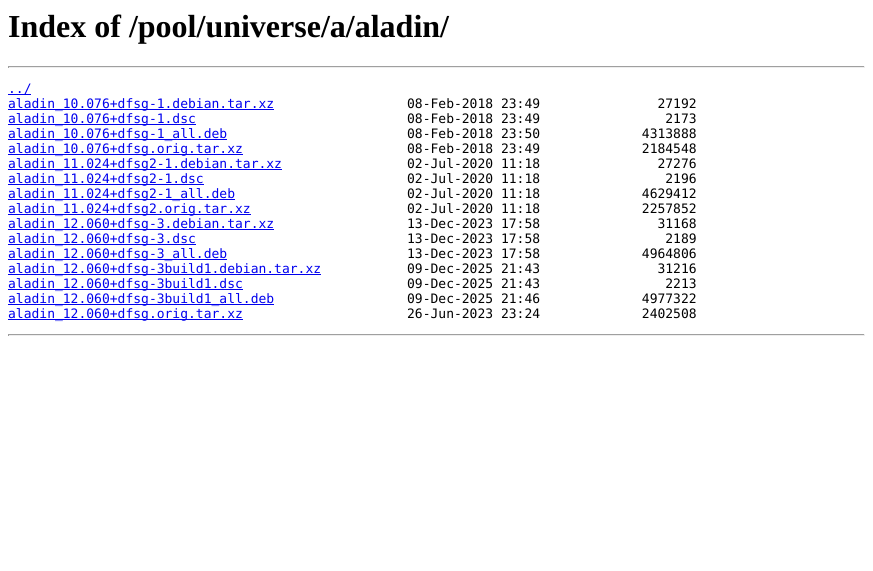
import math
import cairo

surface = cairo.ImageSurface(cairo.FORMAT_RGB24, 873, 571)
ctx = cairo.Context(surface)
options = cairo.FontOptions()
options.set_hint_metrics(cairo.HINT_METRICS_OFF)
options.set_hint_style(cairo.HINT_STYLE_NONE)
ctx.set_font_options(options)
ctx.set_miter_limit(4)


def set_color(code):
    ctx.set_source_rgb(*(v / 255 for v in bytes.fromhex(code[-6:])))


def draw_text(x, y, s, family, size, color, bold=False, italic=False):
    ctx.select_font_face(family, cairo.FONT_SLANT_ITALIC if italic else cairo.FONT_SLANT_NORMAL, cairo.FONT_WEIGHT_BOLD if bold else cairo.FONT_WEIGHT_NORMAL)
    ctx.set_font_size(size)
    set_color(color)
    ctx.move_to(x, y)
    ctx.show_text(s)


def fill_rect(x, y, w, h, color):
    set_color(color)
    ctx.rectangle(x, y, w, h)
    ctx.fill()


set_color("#ffffff")
ctx.paint()
draw_text(8, 37, "Index of /pool/universe/a/aladin/", "Liberation Serif", 32, "#000000", bold=True)
fill_rect(8, 66, 857, 1, "#9f9f9f")
fill_rect(864, 66, 1, 2, "#eeeeee")
fill_rect(8, 67, 857, 1, "#eeeeee")
fill_rect(8, 66, 1, 2, "#9f9f9f")
fill_rect(8, 94, 23, 1, "#0000ee")
draw_text(8, 93, "../", "DejaVu Sans Mono", 13, "#0000ee")
fill_rect(8, 109, 266, 1, "#0000ee")
draw_text(8, 108, "aladin_10.076+dfsg-1.debian.tar.xz", "DejaVu Sans Mono", 13, "#0000ee")
draw_text(407, 108, "08-Feb-2018 23:49               27192", "DejaVu Sans Mono", 13, "#000000")
fill_rect(8, 124, 188, 1, "#0000ee")
draw_text(8, 123, "aladin_10.076+dfsg-1.dsc", "DejaVu Sans Mono", 13, "#0000ee")
draw_text(407, 123, "08-Feb-2018 23:49                2173", "DejaVu Sans Mono", 13, "#000000")
fill_rect(8, 139, 219, 1, "#0000ee")
draw_text(8, 138, "aladin_10.076+dfsg-1_all.deb", "DejaVu Sans Mono", 13, "#0000ee")
draw_text(407, 138, "08-Feb-2018 23:50             4313888", "DejaVu Sans Mono", 13, "#000000")
fill_rect(8, 154, 235, 1, "#0000ee")
draw_text(8, 153, "aladin_10.076+dfsg.orig.tar.xz", "DejaVu Sans Mono", 13, "#0000ee")
draw_text(407, 153, "08-Feb-2018 23:49             2184548", "DejaVu Sans Mono", 13, "#000000")
fill_rect(8, 169, 274, 1, "#0000ee")
draw_text(8, 168, "aladin_11.024+dfsg2-1.debian.tar.xz", "DejaVu Sans Mono", 13, "#0000ee")
draw_text(407, 168, "02-Jul-2020 11:18               27276", "DejaVu Sans Mono", 13, "#000000")
fill_rect(8, 184, 196, 1, "#0000ee")
draw_text(8, 183, "aladin_11.024+dfsg2-1.dsc", "DejaVu Sans Mono", 13, "#0000ee")
draw_text(407, 183, "02-Jul-2020 11:18                2196", "DejaVu Sans Mono", 13, "#000000")
fill_rect(8, 199, 227, 1, "#0000ee")
draw_text(8, 198, "aladin_11.024+dfsg2-1_all.deb", "DejaVu Sans Mono", 13, "#0000ee")
draw_text(407, 198, "02-Jul-2020 11:18             4629412", "DejaVu Sans Mono", 13, "#000000")
fill_rect(8, 214, 243, 1, "#0000ee")
draw_text(8, 213, "aladin_11.024+dfsg2.orig.tar.xz", "DejaVu Sans Mono", 13, "#0000ee")
draw_text(407, 213, "02-Jul-2020 11:18             2257852", "DejaVu Sans Mono", 13, "#000000")
fill_rect(8, 229, 266, 1, "#0000ee")
draw_text(8, 228, "aladin_12.060+dfsg-3.debian.tar.xz", "DejaVu Sans Mono", 13, "#0000ee")
draw_text(407, 228, "13-Dec-2023 17:58               31168", "DejaVu Sans Mono", 13, "#000000")
fill_rect(8, 244, 188, 1, "#0000ee")
draw_text(8, 243, "aladin_12.060+dfsg-3.dsc", "DejaVu Sans Mono", 13, "#0000ee")
draw_text(407, 243, "13-Dec-2023 17:58                2189", "DejaVu Sans Mono", 13, "#000000")
fill_rect(8, 259, 219, 1, "#0000ee")
draw_text(8, 258, "aladin_12.060+dfsg-3_all.deb", "DejaVu Sans Mono", 13, "#0000ee")
draw_text(407, 258, "13-Dec-2023 17:58             4964806", "DejaVu Sans Mono", 13, "#000000")
fill_rect(8, 274, 313, 1, "#0000ee")
draw_text(8, 273, "aladin_12.060+dfsg-3build1.debian.tar.xz", "DejaVu Sans Mono", 13, "#0000ee")
draw_text(407, 273, "09-Dec-2025 21:43               31216", "DejaVu Sans Mono", 13, "#000000")
fill_rect(8, 289, 235, 1, "#0000ee")
draw_text(8, 288, "aladin_12.060+dfsg-3build1.dsc", "DejaVu Sans Mono", 13, "#0000ee")
draw_text(407, 288, "09-Dec-2025 21:43                2213", "DejaVu Sans Mono", 13, "#000000")
fill_rect(8, 304, 266, 1, "#0000ee")
draw_text(8, 303, "aladin_12.060+dfsg-3build1_all.deb", "DejaVu Sans Mono", 13, "#0000ee")
draw_text(407, 303, "09-Dec-2025 21:46             4977322", "DejaVu Sans Mono", 13, "#000000")
fill_rect(8, 319, 235, 1, "#0000ee")
draw_text(8, 318, "aladin_12.060+dfsg.orig.tar.xz", "DejaVu Sans Mono", 13, "#0000ee")
draw_text(407, 318, "26-Jun-2023 23:24             2402508", "DejaVu Sans Mono", 13, "#000000")
fill_rect(8, 334, 857, 1, "#9f9f9f")
fill_rect(864, 334, 1, 2, "#eeeeee")
fill_rect(8, 335, 857, 1, "#eeeeee")
fill_rect(8, 334, 1, 2, "#9f9f9f")
surface.write_to_png("output.png")
